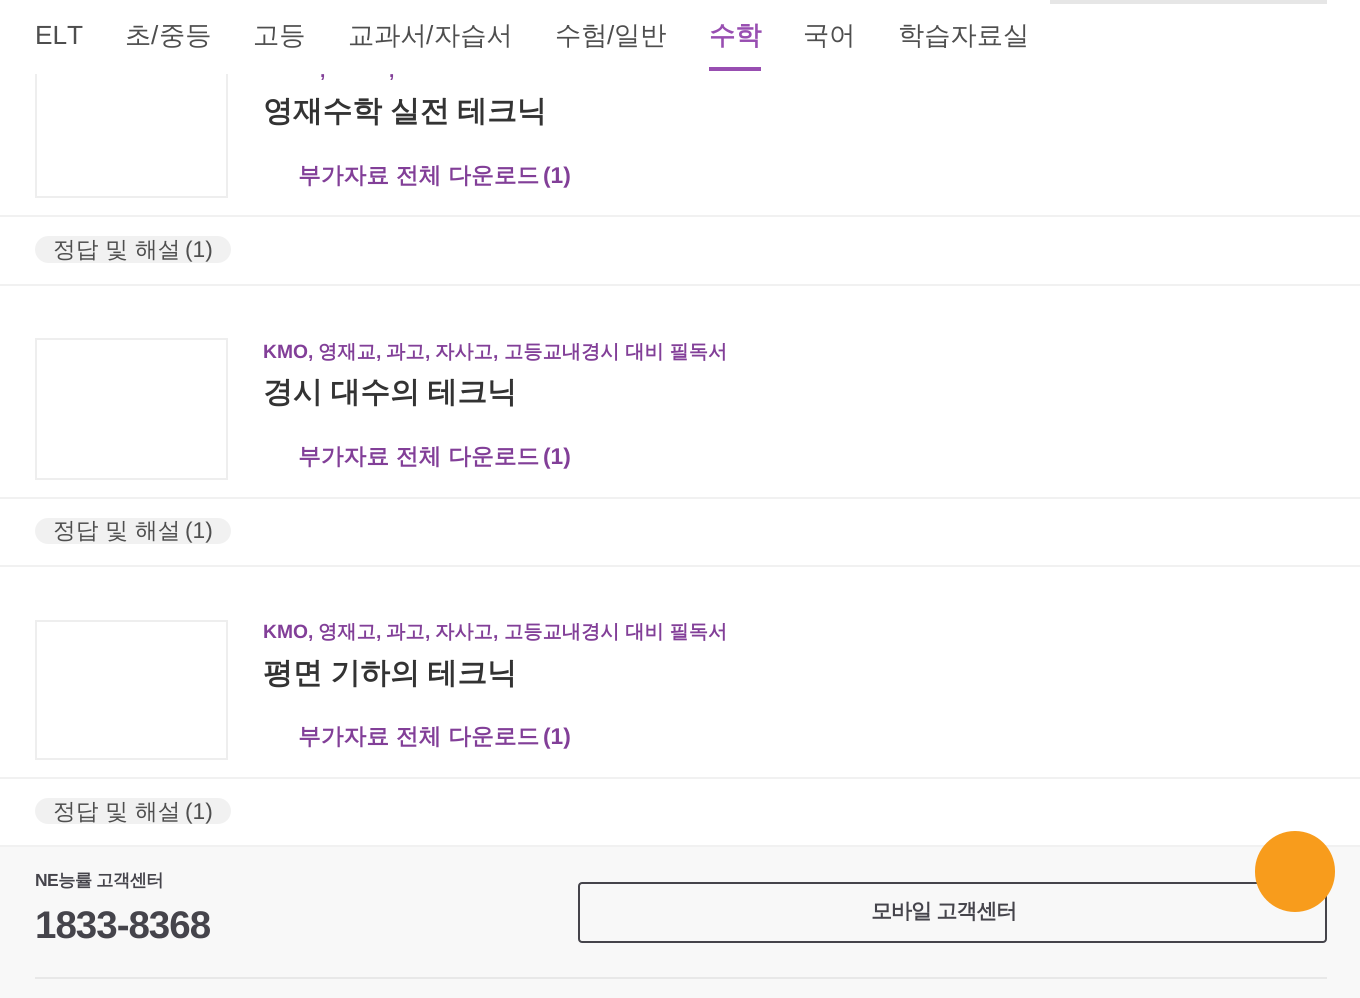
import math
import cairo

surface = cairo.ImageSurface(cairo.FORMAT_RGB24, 1360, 998)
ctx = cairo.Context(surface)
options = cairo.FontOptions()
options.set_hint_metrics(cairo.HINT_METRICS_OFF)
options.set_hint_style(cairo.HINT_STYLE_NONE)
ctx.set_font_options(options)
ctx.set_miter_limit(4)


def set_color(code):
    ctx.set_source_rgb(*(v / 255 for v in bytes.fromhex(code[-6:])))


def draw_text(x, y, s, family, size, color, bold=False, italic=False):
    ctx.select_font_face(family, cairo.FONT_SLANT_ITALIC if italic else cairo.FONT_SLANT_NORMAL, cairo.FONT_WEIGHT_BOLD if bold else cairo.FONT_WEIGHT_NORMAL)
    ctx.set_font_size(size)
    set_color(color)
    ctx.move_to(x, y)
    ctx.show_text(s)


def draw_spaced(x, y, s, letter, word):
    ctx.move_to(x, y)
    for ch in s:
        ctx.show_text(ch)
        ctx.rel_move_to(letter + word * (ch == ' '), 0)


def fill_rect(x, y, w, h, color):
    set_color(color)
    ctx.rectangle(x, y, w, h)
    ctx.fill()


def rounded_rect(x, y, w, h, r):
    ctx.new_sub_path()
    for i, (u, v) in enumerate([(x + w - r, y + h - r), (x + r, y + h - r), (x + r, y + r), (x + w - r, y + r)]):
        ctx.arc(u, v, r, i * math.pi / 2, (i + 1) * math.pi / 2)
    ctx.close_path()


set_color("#ffffff")
ctx.paint()
ctx.rectangle(36, 59, 191, 138)
set_color("#eeeeee")
ctx.stroke()
fill_rect(35, 58, 193, 16, "#ffffff")
fill_rect(1050, 0, 277, 4, "#e6e6e6")
draw_text(35, 44, "ELT", "Liberation Sans", 26.25, "#4e4e4e")
draw_text(125, 44, "초", "WenQuanYi Zen Hei Medium", 26.25, "#4e4e4e")
draw_text(151, 44, "/", "Liberation Sans", 26.25, "#4e4e4e")
draw_text(159, 44, "중등", "WenQuanYi Zen Hei Medium", 26.25, "#4e4e4e")
draw_text(253, 44, "고등", "WenQuanYi Zen Hei Medium", 26.25, "#4e4e4e")
draw_text(348, 44, "교과서", "WenQuanYi Zen Hei Medium", 26.25, "#4e4e4e")
draw_text(426, 44, "/", "Liberation Sans", 26.25, "#4e4e4e")
draw_text(434, 44, "자습서", "WenQuanYi Zen Hei Medium", 26.25, "#4e4e4e")
draw_text(555, 44, "수험", "WenQuanYi Zen Hei Medium", 26.25, "#4e4e4e")
draw_text(607, 44, "/", "Liberation Sans", 26.25, "#4e4e4e")
draw_text(614, 44, "일반", "WenQuanYi Zen Hei Medium", 26.25, "#4e4e4e")
draw_text(709, 44, "수학", "WenQuanYi Zen Hei", 26.25, "#984eb1", bold=True)
fill_rect(709, 67, 52, 4, "#984eb1")
draw_text(803, 44, "국어", "WenQuanYi Zen Hei Medium", 26.25, "#4e4e4e")
draw_text(898, 44, "학습자료실", "WenQuanYi Zen Hei Medium", 26.25, "#4e4e4e")
draw_text(320, 77, ",", "Liberation Sans", 19.25, "#823f98", bold=True)
draw_text(389, 77, ",", "Liberation Sans", 19.25, "#823f98", bold=True)
ctx.select_font_face("WenQuanYi Zen Hei", cairo.FONT_SLANT_NORMAL, cairo.FONT_WEIGHT_BOLD)
ctx.set_font_size(29.75)
set_color("#333333")
draw_spaced(263, 121, "영재수학 실전 테크닉", 0, -1)
draw_text(298, 183, "부가자료 전체 다운로드", "WenQuanYi Zen Hei", 22.75, "#823f98", bold=True)
draw_text(543, 183, "(1)", "Liberation Sans", 22.75, "#823f98", bold=True)
fill_rect(0, 215, 1360, 2, "#f1f1f1")
fill_rect(0, 284, 1360, 2, "#f1f1f1")
rounded_rect(35, 236, 196, 27, 13.5)
ctx.fill()
draw_text(53, 257, "정답 및 해설", "WenQuanYi Zen Hei Medium", 22.75, "#4e4e4e")
draw_text(185, 257, "(1)", "Liberation Sans", 22.75, "#4e4e4e")
ctx.rectangle(36, 339, 191, 140)
set_color("#eeeeee")
ctx.stroke()
draw_text(263, 358, "KMO,", "Liberation Sans", 19.25, "#823f98", bold=True)
draw_text(318, 358, "영재교", "WenQuanYi Zen Hei", 19.25, "#823f98", bold=True)
draw_text(376, 358, ",", "Liberation Sans", 19.25, "#823f98", bold=True)
draw_text(386, 358, "과고", "WenQuanYi Zen Hei", 19.25, "#823f98", bold=True)
draw_text(425, 358, ",", "Liberation Sans", 19.25, "#823f98", bold=True)
draw_text(435, 358, "자사고", "WenQuanYi Zen Hei", 19.25, "#823f98", bold=True)
draw_text(493, 358, ",", "Liberation Sans", 19.25, "#823f98", bold=True)
draw_text(504, 358, "고등교내경시 대비 필독서", "WenQuanYi Zen Hei", 19.25, "#823f98", bold=True)
ctx.set_font_size(29.75)
set_color("#333333")
draw_spaced(263, 402, "경시 대수의 테크닉", 0, -1)
draw_text(298, 464, "부가자료 전체 다운로드", "WenQuanYi Zen Hei", 22.75, "#823f98", bold=True)
draw_text(543, 464, "(1)", "Liberation Sans", 22.75, "#823f98", bold=True)
fill_rect(0, 497, 1360, 2, "#f1f1f1")
fill_rect(0, 565, 1360, 2, "#f1f1f1")
rounded_rect(35, 518, 196, 26, 13)
ctx.fill()
draw_text(53, 538, "정답 및 해설", "WenQuanYi Zen Hei Medium", 22.75, "#4e4e4e")
draw_text(185, 538, "(1)", "Liberation Sans", 22.75, "#4e4e4e")
ctx.rectangle(36, 621, 191, 138)
set_color("#eeeeee")
ctx.stroke()
draw_text(263, 638, "KMO,", "Liberation Sans", 19.25, "#823f98", bold=True)
draw_text(318, 638, "영재고", "WenQuanYi Zen Hei", 19.25, "#823f98", bold=True)
draw_text(376, 638, ",", "Liberation Sans", 19.25, "#823f98", bold=True)
draw_text(386, 638, "과고", "WenQuanYi Zen Hei", 19.25, "#823f98", bold=True)
draw_text(425, 638, ",", "Liberation Sans", 19.25, "#823f98", bold=True)
draw_text(435, 638, "자사고", "WenQuanYi Zen Hei", 19.25, "#823f98", bold=True)
draw_text(493, 638, ",", "Liberation Sans", 19.25, "#823f98", bold=True)
draw_text(504, 638, "고등교내경시 대비 필독서", "WenQuanYi Zen Hei", 19.25, "#823f98", bold=True)
ctx.set_font_size(29.75)
set_color("#333333")
draw_spaced(263, 683, "평면 기하의 테크닉", 0, -1)
draw_text(298, 744, "부가자료 전체 다운로드", "WenQuanYi Zen Hei", 22.75, "#823f98", bold=True)
draw_text(543, 744, "(1)", "Liberation Sans", 22.75, "#823f98", bold=True)
fill_rect(0, 777, 1360, 2, "#f1f1f1")
fill_rect(0, 845, 1360, 2, "#f1f1f1")
rounded_rect(35, 798, 196, 26, 13)
ctx.fill()
draw_text(53, 819, "정답 및 해설", "WenQuanYi Zen Hei Medium", 22.75, "#4e4e4e")
draw_text(185, 819, "(1)", "Liberation Sans", 22.75, "#4e4e4e")
fill_rect(0, 847, 1360, 151, "#f8f8f8")
ctx.select_font_face("Liberation Sans", cairo.FONT_SLANT_NORMAL, cairo.FONT_WEIGHT_BOLD)
ctx.set_font_size(17.5)
set_color("#45444b")
draw_spaced(35, 886, "NE", -0.75, 0)
ctx.select_font_face("WenQuanYi Zen Hei", cairo.FONT_SLANT_NORMAL, cairo.FONT_WEIGHT_BOLD)
draw_spaced(58, 886, "능률 고객센터", -0.75, 0)
ctx.select_font_face("Liberation Sans", cairo.FONT_SLANT_NORMAL, cairo.FONT_WEIGHT_BOLD)
ctx.set_font_size(38.5)
draw_spaced(35, 938, "1833-8368", -1, 0)
rounded_rect(579, 883, 747, 59, 3)
ctx.stroke()
ctx.select_font_face("WenQuanYi Zen Hei", cairo.FONT_SLANT_NORMAL, cairo.FONT_WEIGHT_BOLD)
ctx.set_font_size(21)
draw_spaced(871, 918, "모바일 고객센터", -1, 0)
fill_rect(35, 977, 1292, 2, "#e8e8e8")
set_color("#f89c1c")
rounded_rect(1255, 831, 80, 81, 40)
ctx.fill()
surface.write_to_png("output.png")
